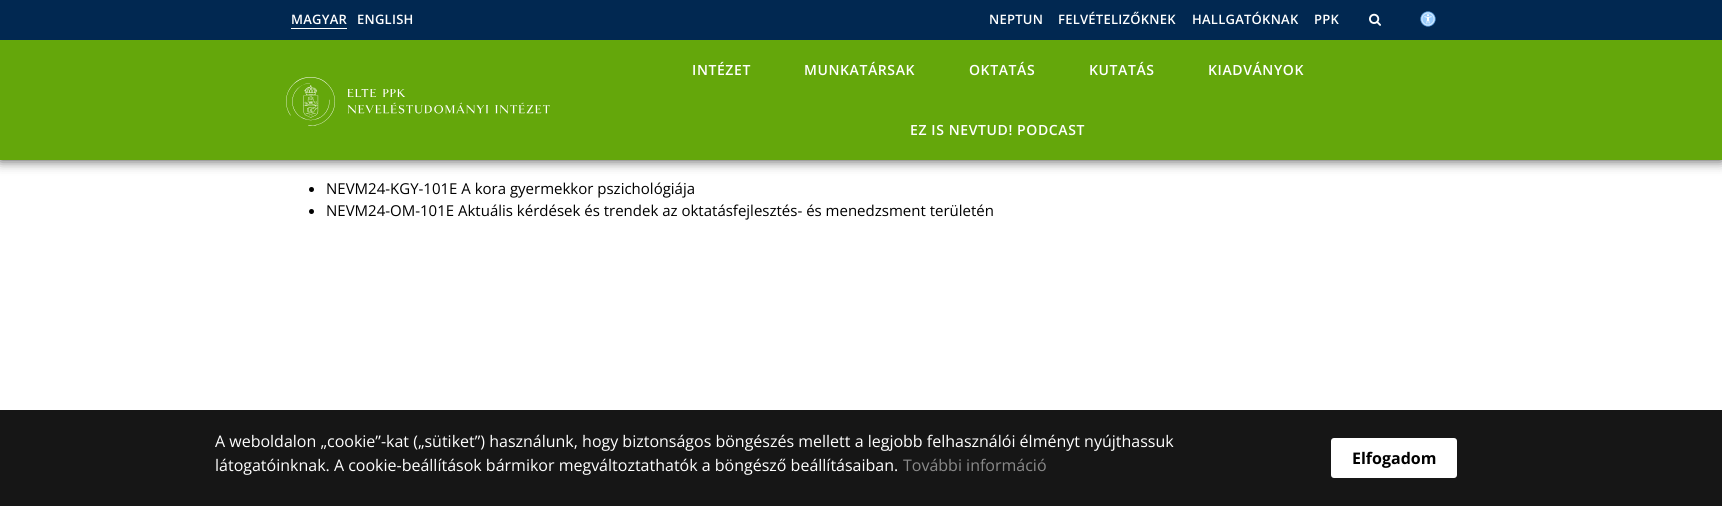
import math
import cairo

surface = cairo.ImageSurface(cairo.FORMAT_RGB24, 1722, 506)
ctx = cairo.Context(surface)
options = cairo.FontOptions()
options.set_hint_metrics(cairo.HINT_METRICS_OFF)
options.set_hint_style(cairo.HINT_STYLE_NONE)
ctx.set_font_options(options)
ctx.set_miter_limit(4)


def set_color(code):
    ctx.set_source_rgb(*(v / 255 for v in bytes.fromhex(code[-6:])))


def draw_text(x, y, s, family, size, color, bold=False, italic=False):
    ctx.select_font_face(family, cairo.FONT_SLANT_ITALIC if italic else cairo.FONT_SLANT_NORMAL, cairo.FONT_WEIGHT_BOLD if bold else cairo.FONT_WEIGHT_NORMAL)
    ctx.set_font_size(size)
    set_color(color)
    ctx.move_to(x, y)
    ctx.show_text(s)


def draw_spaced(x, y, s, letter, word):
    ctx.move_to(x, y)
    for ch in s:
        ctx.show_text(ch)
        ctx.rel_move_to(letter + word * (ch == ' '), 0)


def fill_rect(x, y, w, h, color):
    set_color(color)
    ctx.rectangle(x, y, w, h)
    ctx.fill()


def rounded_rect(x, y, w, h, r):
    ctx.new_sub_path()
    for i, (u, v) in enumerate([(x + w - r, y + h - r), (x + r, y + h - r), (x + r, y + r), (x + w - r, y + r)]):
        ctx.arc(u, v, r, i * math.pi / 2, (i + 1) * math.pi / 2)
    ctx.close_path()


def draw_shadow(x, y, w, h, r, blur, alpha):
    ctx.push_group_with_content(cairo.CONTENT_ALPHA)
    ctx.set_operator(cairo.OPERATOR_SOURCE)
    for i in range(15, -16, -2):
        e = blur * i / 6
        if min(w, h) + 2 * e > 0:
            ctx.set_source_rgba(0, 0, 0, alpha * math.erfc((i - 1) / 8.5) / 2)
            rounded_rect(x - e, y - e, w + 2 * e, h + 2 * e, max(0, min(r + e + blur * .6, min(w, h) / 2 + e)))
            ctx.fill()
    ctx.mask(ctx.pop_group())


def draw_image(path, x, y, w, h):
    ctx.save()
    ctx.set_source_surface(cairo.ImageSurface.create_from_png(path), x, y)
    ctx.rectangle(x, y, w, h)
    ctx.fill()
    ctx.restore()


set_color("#ffffff")
ctx.paint()
set_color("#000000")
draw_shadow(0, 0, 1722, 160, 0, 6.5, 0.75)
fill_rect(0, 0, 1722, 40, "#012851")
ctx.select_font_face("Open Sans SemiBold")
ctx.set_font_size(13)
set_color("#ffffff")
draw_spaced(291, 24, "MAGYAR", 0.25, 0)
fill_rect(291, 28, 56, 1, "#ffffff")
draw_spaced(357, 24, "ENGLISH", 0.25, 0)
draw_spaced(989, 24, "NEPTUN", 0.25, 0)
draw_spaced(1058, 24, "FELVÉTELIZŐKNEK", 0.25, 0)
draw_spaced(1192, 24, "HALLGATÓKNAK", 0.25, 0)
draw_spaced(1314, 24, "PPK", 0.25, 0)
draw_image("assets/img1.png", 1369, 13, 12, 13)
draw_image("assets/img2.png", 1420, 11, 16, 16)
fill_rect(0, 40, 1722, 120, "#64a70b")
draw_image("assets/img3.png", 286, 77, 264, 49)
ctx.set_font_size(14)
set_color("#ffffff")
draw_spaced(692, 75, "INTÉZET", 0.6, 0)
draw_spaced(804, 75, "MUNKATÁRSAK", 0.6, 0)
draw_spaced(969, 75, "OKTATÁS", 0.6, 0)
draw_spaced(1089, 75, "KUTATÁS", 0.6, 0)
draw_spaced(1208, 75, "KIADVÁNYOK", 0.6, 0)
draw_spaced(910, 135, "EZ IS NEVTUD! PODCAST", 0.6, 0)
set_color("#000000")
ctx.new_path()
ctx.arc(311.5, 189.5, 2.5, 0, 2 * math.pi)
ctx.fill()
draw_text(326, 194, "NEVM24-KGY-101E A kora gyermekkor pszichológiája", "Open Sans", 15, "#000000")
ctx.new_path()
ctx.arc(311.5, 211.5, 2.5, 0, 2 * math.pi)
ctx.fill()
draw_text(326, 216, "NEVM24-OM-101E Aktuális kérdések és trendek az oktatásfejlesztés- és menedzsment területén", "Open Sans", 15, "#000000")
fill_rect(0, 410, 1722, 96, "#161616")
draw_text(215, 447, "A weboldalon „cookie”-kat („sütiket”) használunk, hogy biztonságos böngészés mellett a legjobb felhasználói élményt nyújthassuk", "Open Sans", 16, "#ffffff")
draw_text(215, 471, "látogatóinknak. A cookie-beállítások bármikor megváltoztathatók a böngésző beállításaiban.", "Open Sans", 16, "#ffffff")
draw_text(903, 471, "További információ", "Open Sans", 16, "#8a8a8a")
set_color("#ffffff")
rounded_rect(1331, 438, 126, 40, 3)
ctx.fill()
draw_text(1352, 464, "Elfogadom", "Open Sans", 16, "#000000", bold=True)
surface.write_to_png("output.png")
